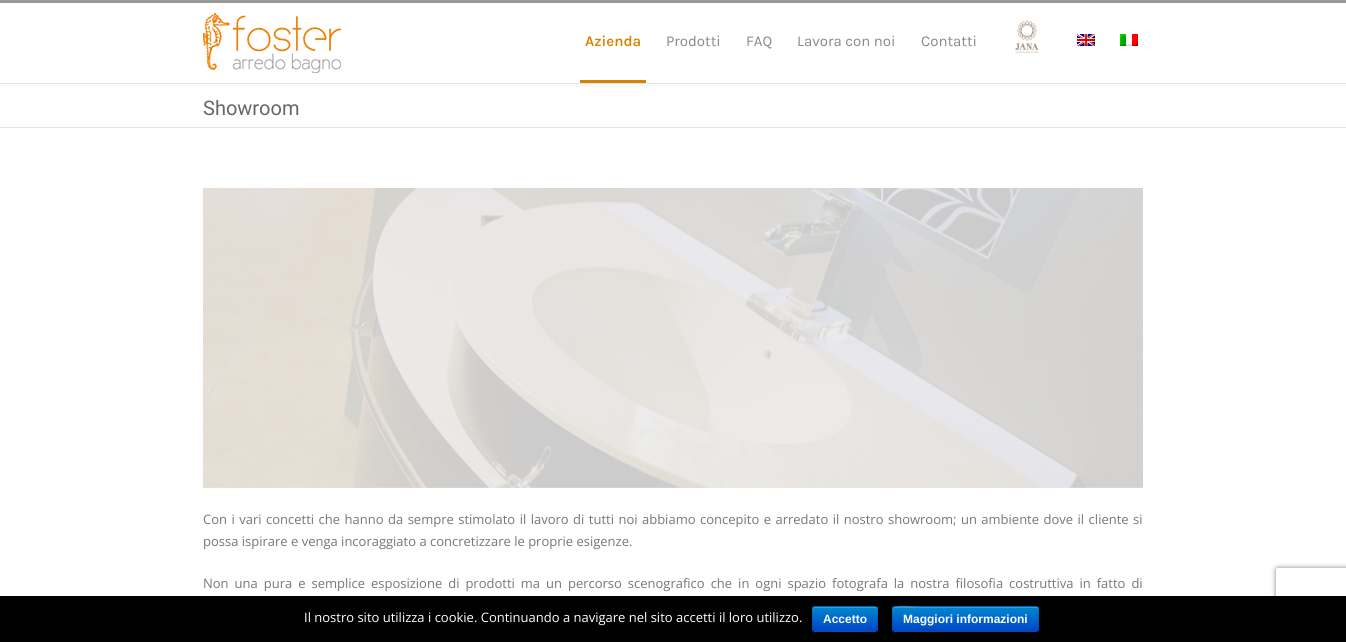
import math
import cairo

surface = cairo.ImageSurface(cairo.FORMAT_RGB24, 1346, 642)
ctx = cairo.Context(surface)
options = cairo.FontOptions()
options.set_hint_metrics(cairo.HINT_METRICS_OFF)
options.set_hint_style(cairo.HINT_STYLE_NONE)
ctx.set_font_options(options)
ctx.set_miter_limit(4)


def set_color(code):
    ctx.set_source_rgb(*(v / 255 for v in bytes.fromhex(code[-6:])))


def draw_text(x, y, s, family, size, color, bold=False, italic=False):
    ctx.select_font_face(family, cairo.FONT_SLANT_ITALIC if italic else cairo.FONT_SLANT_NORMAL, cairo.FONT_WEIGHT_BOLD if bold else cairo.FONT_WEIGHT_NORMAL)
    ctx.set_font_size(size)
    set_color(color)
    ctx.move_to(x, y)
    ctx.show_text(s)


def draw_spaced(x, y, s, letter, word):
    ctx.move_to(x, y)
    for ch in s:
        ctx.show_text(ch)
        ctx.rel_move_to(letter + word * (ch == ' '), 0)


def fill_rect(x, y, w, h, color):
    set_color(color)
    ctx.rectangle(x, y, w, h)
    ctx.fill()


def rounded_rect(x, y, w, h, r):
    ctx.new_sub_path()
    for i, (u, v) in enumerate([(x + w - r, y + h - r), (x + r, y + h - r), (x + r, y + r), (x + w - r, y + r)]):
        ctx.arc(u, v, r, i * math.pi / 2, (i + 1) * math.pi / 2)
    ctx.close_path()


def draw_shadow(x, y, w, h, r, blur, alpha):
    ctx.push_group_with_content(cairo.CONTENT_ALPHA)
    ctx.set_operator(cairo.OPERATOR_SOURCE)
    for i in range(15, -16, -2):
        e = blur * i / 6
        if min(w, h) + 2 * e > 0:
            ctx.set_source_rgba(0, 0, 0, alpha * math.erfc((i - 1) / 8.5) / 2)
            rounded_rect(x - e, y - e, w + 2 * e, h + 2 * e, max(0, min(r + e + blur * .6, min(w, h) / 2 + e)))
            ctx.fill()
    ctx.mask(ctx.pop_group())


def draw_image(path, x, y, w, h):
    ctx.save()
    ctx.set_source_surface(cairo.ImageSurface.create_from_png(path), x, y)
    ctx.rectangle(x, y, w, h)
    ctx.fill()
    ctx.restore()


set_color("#ffffff")
ctx.paint()
fill_rect(0, 0, 1346, 3, "#999999")
draw_image("assets/img1.png", 203, 13, 138, 60)
fill_rect(580, 80, 66, 3, "#d78300")
draw_text(585, 46, "Azienda", "Karla SemiBold", 15, "#d78300")
draw_text(666, 46, "Prodotti", "Karla", 15, "#888888")
draw_text(746, 46, "FAQ", "Karla", 15, "#888888")
draw_text(797, 46, "Lavora con noi", "Karla", 15, "#888888")
draw_text(921, 46, "Contatti", "Karla", 15, "#888888")
draw_image("assets/img2.png", 1015, 20, 24, 33)
draw_image("assets/img3.png", 1077, 34, 18, 12)
draw_image("assets/img4.png", 1120, 34, 18, 12)
fill_rect(0, 84, 1346, 3, "#fafafa")
fill_rect(0, 83, 1346, 1, "#e4e4e4")
fill_rect(0, 127, 1346, 1, "#e4e4e4")
draw_text(203, 115, "Showroom", "Roboto", 20, "#666666")
fill_rect(203, 188, 940, 300, "#e9e9e9")
draw_image("assets/img5.png", 203, 188, 940, 300)
ctx.select_font_face("Open Sans")
ctx.set_font_size(13)
set_color("#777777")
draw_spaced(203, 524, "Con i vari concetti che hanno da sempre stimolato il lavoro di tutti noi abbiamo concepito e arredato il nostro showroom; un ambiente dove il cliente si", 0, 1.1)
draw_text(203, 546, "possa ispirare e venga incoraggiato a concretizzare le proprie esigenze.", "Open Sans", 13, "#777777")
draw_spaced(203, 588, "Non una pura e semplice esposizione di prodotti ma un percorso scenografico che in ogni spazio fotografa la nostra filosofia costruttiva in fatto di", 0, 2.6)
ctx.save()
ctx.set_fill_rule(cairo.FILL_RULE_EVEN_ODD)
ctx.new_path()
ctx.move_to(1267, 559)
ctx.line_to(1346, 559)
ctx.line_to(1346, 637)
ctx.line_to(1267, 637)
ctx.close_path()
ctx.move_to(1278, 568)
ctx.line_to(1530, 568)
ctx.curve_to(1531, 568, 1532, 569, 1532, 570)
ctx.line_to(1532, 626)
ctx.curve_to(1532, 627, 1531, 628, 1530, 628)
ctx.line_to(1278, 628)
ctx.curve_to(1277, 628, 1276, 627, 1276, 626)
ctx.line_to(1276, 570)
ctx.curve_to(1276, 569, 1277, 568, 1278, 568)
ctx.close_path()
ctx.clip()
set_color("#808080")
draw_shadow(1276, 568, 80, 60, 2, 2.5, 1)
ctx.restore()
fill_rect(0, 596, 1346, 46, "#000000")
draw_text(304, 622, "Il nostro sito utilizza i cookie. Continuando a navigare nel sito accetti il loro utilizzo.", "Open Sans", 13, "#ffffff")
set_color("#006dcc")
rounded_rect(812, 606, 66, 26, 3)
ctx.fill()
ctx.save()
rounded_rect(812, 606, 66, 26, 3)
ctx.clip()
gradient = cairo.LinearGradient(845, 607, 845, 631)
gradient.add_color_stop_rgba(0, 0, 0.533, 0.8, 1)
gradient.add_color_stop_rgba(1, 0, 0.267, 0.8, 1)
ctx.set_source(gradient)
ctx.rectangle(812, 607, 66, 24)
ctx.fill()
ctx.restore()
ctx.set_source_rgba(1, 1, 1, 0.2)
ctx.set_fill_rule(cairo.FILL_RULE_EVEN_ODD)
ctx.new_path()
ctx.move_to(815, 608)
ctx.line_to(875, 608)
ctx.line_to(877, 609)
ctx.curve_to(877, 608, 876, 607, 875, 607)
ctx.line_to(815, 607)
ctx.curve_to(814, 607, 813, 608, 813, 609)
ctx.line_to(813, 611)
ctx.curve_to(813, 609, 814, 608, 815, 608)
ctx.close_path()
ctx.move_to(813, 630)
ctx.line_to(813, 627)
ctx.close_path()
ctx.fill()
ctx.new_path()
ctx.move_to(877, 631)
ctx.line_to(875, 631.5)
ctx.curve_to(870, 632, 814.5, 632, 813.5, 631)
ctx.line_to(813, 631)
ctx.set_source_rgba(0, 0, 0, 0.25)
ctx.set_line_width(1)
ctx.stroke()
ctx.new_path()
ctx.move_to(813, 631)
ctx.curve_to(811.5, 629, 812.5, 621.5, 812.5, 619)
ctx.curve_to(812.5, 604.5, 810, 606.5, 825, 606.5)
ctx.line_to(865, 606.5)
ctx.curve_to(880, 606.5, 877.5, 604.5, 877.5, 619)
ctx.curve_to(877.5, 621.5, 878.5, 629, 877, 631)
ctx.set_source_rgba(0, 0, 0, 0.1)
ctx.stroke()
draw_text(823, 623, "Accetto", "Liberation Sans", 12, "#ffffff", bold=True)
set_color("#006dcc")
rounded_rect(892, 606, 147, 26, 3)
ctx.fill()
ctx.save()
ctx.set_fill_rule(cairo.FILL_RULE_WINDING)
rounded_rect(892, 606, 147, 26, 3)
ctx.clip()
gradient = cairo.LinearGradient(966, 607, 966, 631)
gradient.add_color_stop_rgba(0, 0, 0.533, 0.8, 1)
gradient.add_color_stop_rgba(1, 0, 0.267, 0.8, 1)
ctx.set_source(gradient)
ctx.rectangle(892, 607, 147, 24)
ctx.fill()
ctx.restore()
ctx.set_source_rgba(1, 1, 1, 0.2)
ctx.set_fill_rule(cairo.FILL_RULE_WINDING)
ctx.new_path()
ctx.move_to(895, 608)
ctx.line_to(1036, 608)
ctx.curve_to(1037, 608, 1038, 609, 1038, 610)
ctx.curve_to(1038, 609, 1038, 608, 1037, 607)
ctx.line_to(918, 607)
ctx.curve_to(915, 607, 893, 602, 893, 610)
ctx.curve_to(893, 609, 894, 608, 895, 608)
ctx.close_path()
ctx.fill()
ctx.new_path()
ctx.move_to(1038, 631)
ctx.line_to(1036, 631.5)
ctx.line_to(895, 631.5)
ctx.line_to(893, 631)
ctx.set_source_rgba(0, 0, 0, 0.25)
ctx.stroke()
ctx.new_path()
ctx.move_to(893, 631)
ctx.curve_to(891.5, 629, 892.5, 621.5, 892.5, 619)
ctx.line_to(892.5, 612.5)
ctx.curve_to(892.5, 610.5, 892, 606.5, 895, 606.5)
ctx.line_to(1036, 606.5)
ctx.curve_to(1039, 606.5, 1038.5, 610.5, 1038.5, 612.5)
ctx.line_to(1038.5, 619)
ctx.curve_to(1038.5, 621.5, 1039.5, 629, 1038, 631)
ctx.set_source_rgba(0, 0, 0, 0.1)
ctx.stroke()
draw_text(903, 623, "Maggiori informazioni", "Liberation Sans", 12, "#ffffff", bold=True)
surface.write_to_png("output.png")
